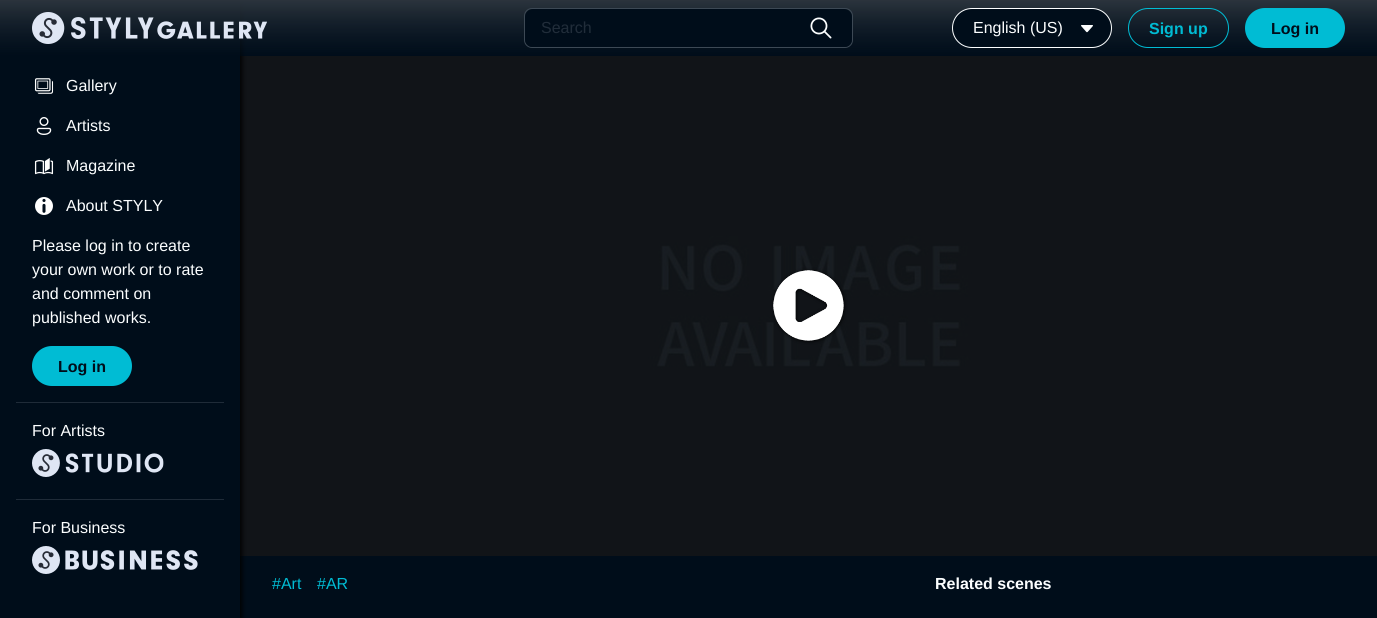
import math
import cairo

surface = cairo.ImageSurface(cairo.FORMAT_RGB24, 1377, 618)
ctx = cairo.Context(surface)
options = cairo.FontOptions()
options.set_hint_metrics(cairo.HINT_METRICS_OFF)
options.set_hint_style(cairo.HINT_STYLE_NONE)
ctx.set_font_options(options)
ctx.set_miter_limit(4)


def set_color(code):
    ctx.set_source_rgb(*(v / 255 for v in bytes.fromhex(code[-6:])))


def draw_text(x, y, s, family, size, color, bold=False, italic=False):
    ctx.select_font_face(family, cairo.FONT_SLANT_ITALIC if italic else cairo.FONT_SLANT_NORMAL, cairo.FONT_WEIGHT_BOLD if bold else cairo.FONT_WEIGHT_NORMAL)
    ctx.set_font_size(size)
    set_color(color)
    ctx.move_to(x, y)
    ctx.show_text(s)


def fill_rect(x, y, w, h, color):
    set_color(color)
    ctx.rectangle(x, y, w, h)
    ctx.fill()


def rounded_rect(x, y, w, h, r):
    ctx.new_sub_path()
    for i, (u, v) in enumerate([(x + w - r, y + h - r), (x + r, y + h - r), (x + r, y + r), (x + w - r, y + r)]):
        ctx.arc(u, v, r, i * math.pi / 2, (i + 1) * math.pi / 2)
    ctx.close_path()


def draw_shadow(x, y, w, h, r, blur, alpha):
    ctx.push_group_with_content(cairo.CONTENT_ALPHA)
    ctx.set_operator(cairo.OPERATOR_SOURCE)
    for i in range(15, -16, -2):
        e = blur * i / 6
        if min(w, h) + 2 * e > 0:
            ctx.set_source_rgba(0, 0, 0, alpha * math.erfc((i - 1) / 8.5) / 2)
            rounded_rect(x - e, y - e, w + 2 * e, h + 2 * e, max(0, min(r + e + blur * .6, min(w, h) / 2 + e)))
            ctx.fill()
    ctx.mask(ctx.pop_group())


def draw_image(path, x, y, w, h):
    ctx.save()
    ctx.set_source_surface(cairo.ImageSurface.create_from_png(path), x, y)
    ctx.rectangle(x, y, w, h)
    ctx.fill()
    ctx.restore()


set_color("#000d1a")
ctx.paint()
draw_image("assets/img10.png", 240, 56, 1137, 500)
ctx.save()
ctx.rectangle(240, 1, 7, 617)
ctx.clip()
set_color("#000000")
draw_shadow(2, 0, 240, 618, 0, 2.5, 1)
ctx.restore()
gradient = cairo.LinearGradient(689, 0, 689, 56)
gradient.add_color_stop_rgba(0, 0.169, 0.204, 0.239, 1)
gradient.add_color_stop_rgba(1, 0, 0.051, 0.102, 0.5)
ctx.set_source(gradient)
ctx.rectangle(0, 0, 1377, 56)
ctx.fill()
draw_image("assets/img1.png", 32, 12, 235, 32)
rounded_rect(524.5, 8.5, 328, 39, 7.5)
set_color("#3d4955")
ctx.set_line_width(1)
ctx.stroke()
ctx.save()
rounded_rect(525, 9, 327, 38, 7)
ctx.clip()
set_color("#000d1a")
ctx.new_path()
ctx.move_to(533, 9)
ctx.line_to(790, 9)
ctx.line_to(790, 47)
ctx.line_to(533, 47)
ctx.curve_to(528.5, 47, 525, 43.5, 525, 39)
ctx.line_to(525, 17)
ctx.curve_to(525, 12.5, 528.5, 9, 533, 9)
ctx.close_path()
ctx.fill()
ctx.restore()
draw_text(541, 33, "Search", "Liberation Sans", 16, "#212d3a")
ctx.save()
rounded_rect(525, 9, 327, 38, 7)
ctx.clip()
set_color("#000d1a")
ctx.new_path()
ctx.move_to(790, 9)
ctx.line_to(844, 9)
ctx.curve_to(848.5, 9, 852, 12.5, 852, 17)
ctx.line_to(852, 39)
ctx.curve_to(852, 43.5, 848.5, 47, 844, 47)
ctx.line_to(790, 47)
ctx.close_path()
ctx.fill()
ctx.restore()
draw_image("assets/img2.png", 810, 17, 22, 22)
set_color("#000d1a")
rounded_rect(952.5, 8.5, 159, 39, 19.5)
ctx.fill_preserve()
set_color("#fcfeff")
ctx.stroke()
draw_text(973, 33, "English (US)", "Liberation Sans", 16, "#fcfeff")
draw_image("assets/img3.png", 1081, 25, 12, 8)
rounded_rect(1128.5, 8.5, 100, 39, 19.5)
set_color("#00bcd4")
ctx.stroke()
draw_text(1149, 34, "Sign up", "Liberation Sans", 16, "#00bcd4", bold=True)
rounded_rect(1245, 8, 100, 40, 20)
ctx.fill()
draw_text(1271, 34, "Log in", "Liberation Sans", 16, "#000d1a", bold=True)
draw_image("assets/img4.png", 34, 78, 20, 16)
draw_text(66, 91, "Gallery", "Liberation Sans", 16, "#fcfeff")
draw_image("assets/img5.png", 36, 117, 16, 18)
draw_text(66, 131, "Artists", "Liberation Sans", 16, "#fcfeff")
draw_image("assets/img6.png", 34, 158, 20, 17)
draw_text(66, 171, "Magazine", "Liberation Sans", 16, "#fcfeff")
draw_image("assets/img7.png", 35, 197, 18, 18)
draw_text(66, 211, "About STYLY", "Liberation Sans", 16, "#fcfeff")
draw_text(32, 251, "Please log in to create", "Liberation Sans", 16, "#fcfeff")
draw_text(32, 275, "your own work or to rate", "Liberation Sans", 16, "#fcfeff")
draw_text(32, 299, "and comment on", "Liberation Sans", 16, "#fcfeff")
draw_text(32, 323, "published works.", "Liberation Sans", 16, "#fcfeff")
set_color("#00bcd4")
rounded_rect(32, 346, 100, 40, 20)
ctx.fill()
draw_text(58, 372, "Log in", "Liberation Sans", 16, "#000d1a", bold=True)
fill_rect(16, 402, 208, 1, "#1f2b38")
draw_text(32, 436, "For Artists", "Liberation Sans", 16, "#fcfeff")
draw_image("assets/img8.png", 32, 449, 132, 28)
fill_rect(16, 499, 208, 1, "#1f2b38")
draw_text(32, 533, "For Business", "Liberation Sans", 16, "#fcfeff")
draw_image("assets/img9.png", 32, 546, 166, 28)
draw_text(272, 589, "#Art", "Liberation Sans", 16, "#00bcd4")
draw_text(317, 589, "#AR", "Liberation Sans", 16, "#00bcd4")
draw_text(935, 589, "Related scenes", "Liberation Sans", 16, "#fcfeff", bold=True)
surface.write_to_png("output.png")
